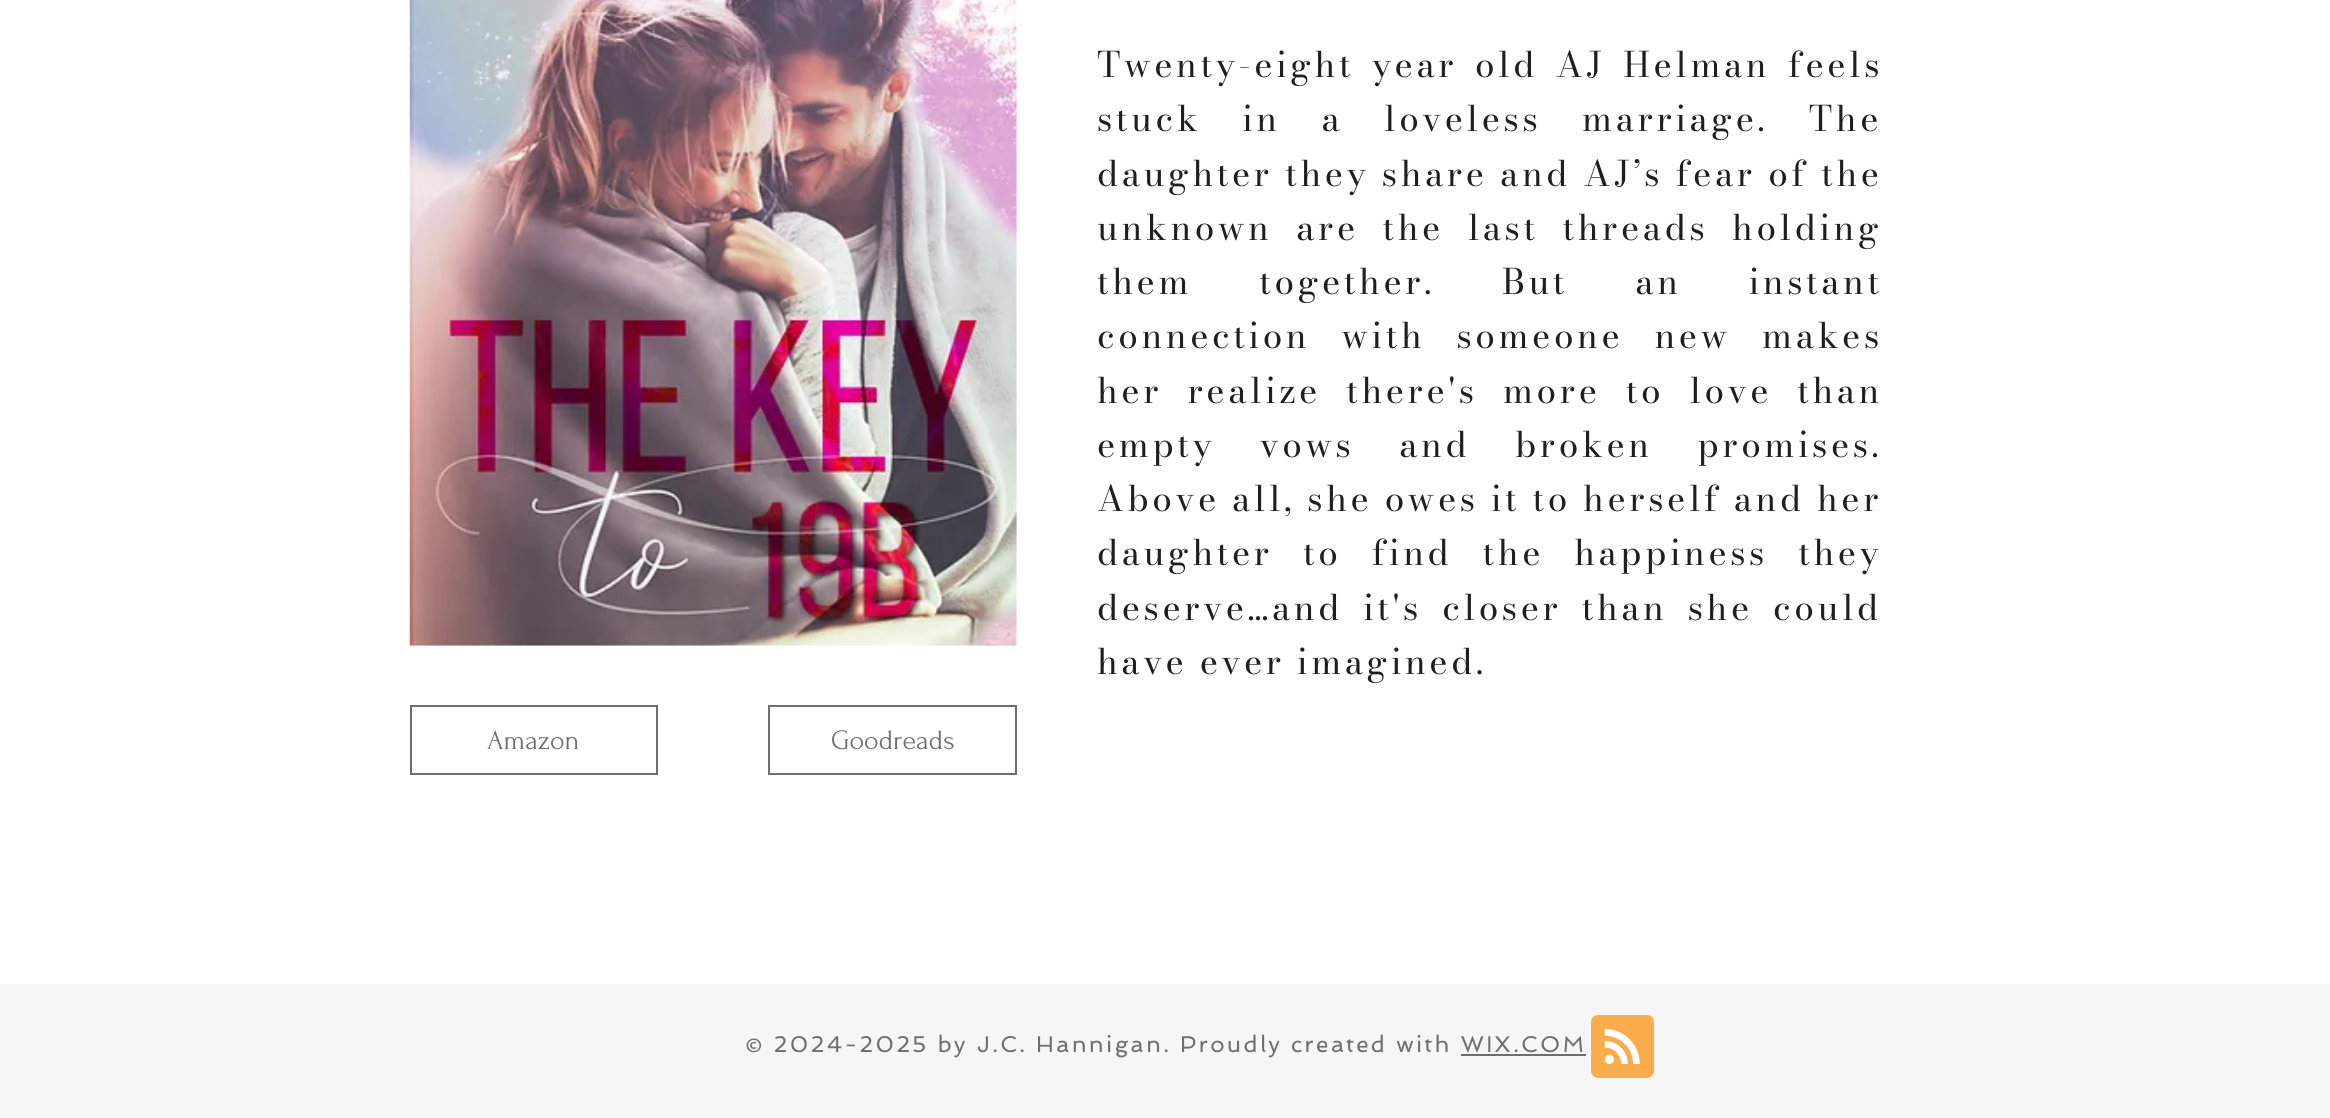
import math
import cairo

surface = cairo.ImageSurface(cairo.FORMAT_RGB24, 2330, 1118)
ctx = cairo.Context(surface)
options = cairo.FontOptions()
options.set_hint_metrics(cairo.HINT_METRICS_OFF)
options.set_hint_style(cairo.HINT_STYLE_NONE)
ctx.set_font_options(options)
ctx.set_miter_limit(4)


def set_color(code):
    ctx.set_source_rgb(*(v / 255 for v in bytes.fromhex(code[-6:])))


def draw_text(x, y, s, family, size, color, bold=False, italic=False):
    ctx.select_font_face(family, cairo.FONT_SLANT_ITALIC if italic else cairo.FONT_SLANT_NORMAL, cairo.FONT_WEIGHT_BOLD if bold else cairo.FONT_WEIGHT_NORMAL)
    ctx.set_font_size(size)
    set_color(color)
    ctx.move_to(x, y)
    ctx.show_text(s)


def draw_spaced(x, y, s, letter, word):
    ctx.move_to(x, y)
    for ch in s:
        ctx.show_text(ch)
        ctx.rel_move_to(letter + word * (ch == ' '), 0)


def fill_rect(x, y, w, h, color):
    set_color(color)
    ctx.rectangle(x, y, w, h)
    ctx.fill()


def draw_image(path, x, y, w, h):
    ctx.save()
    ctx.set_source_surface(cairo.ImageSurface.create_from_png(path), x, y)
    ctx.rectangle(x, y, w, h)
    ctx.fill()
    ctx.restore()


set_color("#ffffff")
ctx.paint()
draw_image("assets/img1.png", 409, 0, 608, 646)
ctx.select_font_face("Bodoni Moda")
ctx.set_font_size(35)
set_color("#1f1f1f")
draw_spaced(1097, 77, "Twenty-eight year old AJ Helman feels", 3.5, 5.5)
draw_spaced(1097, 131, "stuck in a loveless marriage. The", 3.5, 28.5)
draw_spaced(1097, 186, "daughter they share and AJ’s fear of the", 3.5, 0.25)
draw_spaced(1097, 240, "unknown are the last threads holding", 3.5, 11.5)
draw_spaced(1097, 294, "them together. But an instant", 3.5, 55)
draw_spaced(1097, 348, "connection with someone new makes", 3.5, 19)
draw_spaced(1097, 403, "her realize there's more to love than", 3.5, 13)
draw_spaced(1097, 457, "empty vows and broken promises.", 3.5, 32.5)
draw_spaced(1097, 511, "Above all, she owes it to herself and her", 3.5, 0)
draw_spaced(1097, 565, "daughter to find the happiness they", 3.5, 18)
draw_spaced(1097, 620, "deserve…and it's closer than she could", 3.5, 8)
draw_spaced(1097, 674, "have ever imagined.", 3.5, 0)
ctx.rectangle(411, 706, 246, 68)
set_color("#6e6e6e")
ctx.stroke()
draw_text(487, 749, "Amazon", "Forum", 28, "#6e6e6e")
ctx.rectangle(769, 706, 247, 68)
ctx.stroke()
draw_text(831, 749, "Goodreads", "Forum", 28, "#6e6e6e")
fill_rect(0, 984, 2330, 134, "#f6f6f6")
ctx.select_font_face("Spinnaker")
ctx.set_font_size(22.75)
set_color("#6e6e6e")
draw_spaced(745, 1052, "© 2024-2025 by J.C. Hannigan. Proudly created with WIX.COM", 2.27, 0)
fill_rect(1461, 1054, 125, 2, "#6e6e6e")
draw_image("assets/img2.png", 1591, 1015, 63, 63)
surface.write_to_png("output.png")
